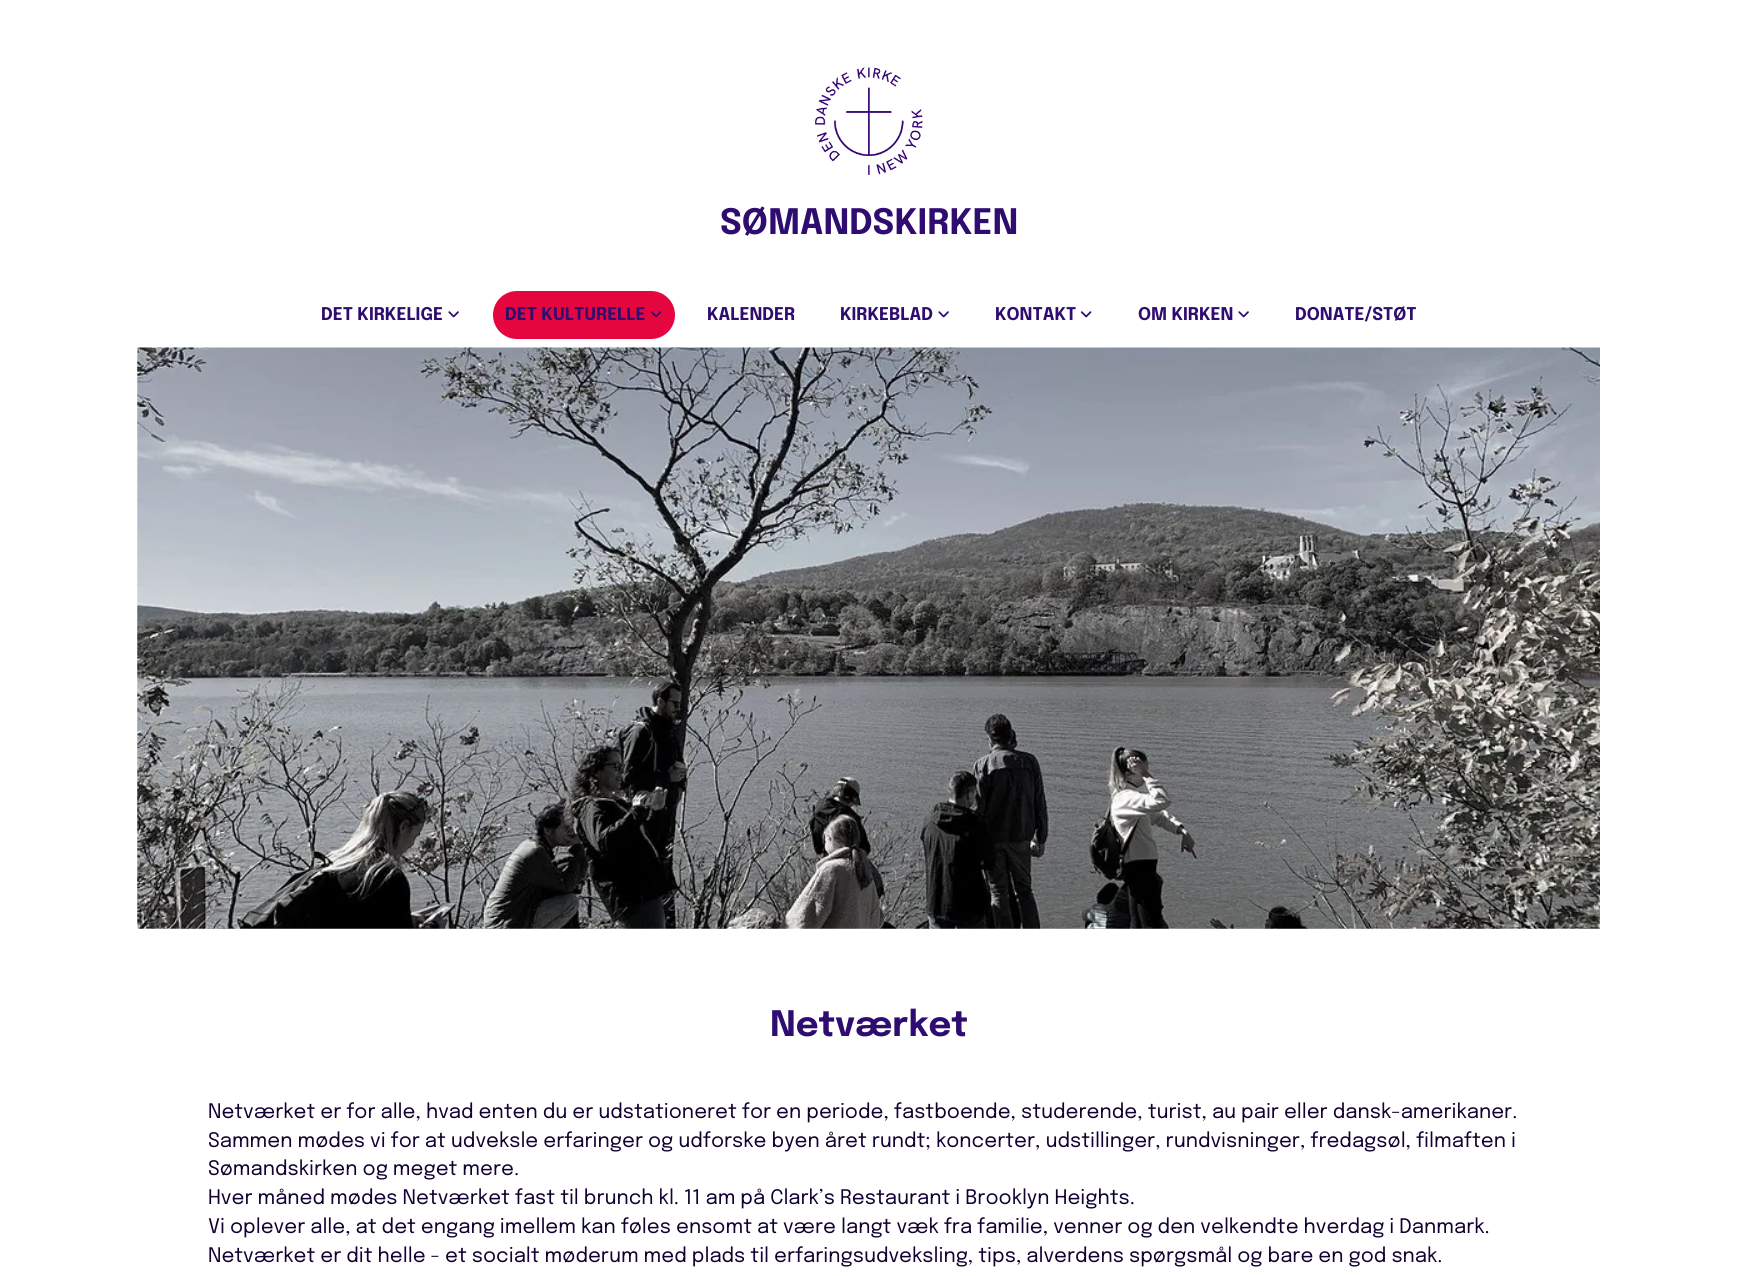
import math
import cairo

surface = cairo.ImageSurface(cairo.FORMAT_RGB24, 1737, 1276)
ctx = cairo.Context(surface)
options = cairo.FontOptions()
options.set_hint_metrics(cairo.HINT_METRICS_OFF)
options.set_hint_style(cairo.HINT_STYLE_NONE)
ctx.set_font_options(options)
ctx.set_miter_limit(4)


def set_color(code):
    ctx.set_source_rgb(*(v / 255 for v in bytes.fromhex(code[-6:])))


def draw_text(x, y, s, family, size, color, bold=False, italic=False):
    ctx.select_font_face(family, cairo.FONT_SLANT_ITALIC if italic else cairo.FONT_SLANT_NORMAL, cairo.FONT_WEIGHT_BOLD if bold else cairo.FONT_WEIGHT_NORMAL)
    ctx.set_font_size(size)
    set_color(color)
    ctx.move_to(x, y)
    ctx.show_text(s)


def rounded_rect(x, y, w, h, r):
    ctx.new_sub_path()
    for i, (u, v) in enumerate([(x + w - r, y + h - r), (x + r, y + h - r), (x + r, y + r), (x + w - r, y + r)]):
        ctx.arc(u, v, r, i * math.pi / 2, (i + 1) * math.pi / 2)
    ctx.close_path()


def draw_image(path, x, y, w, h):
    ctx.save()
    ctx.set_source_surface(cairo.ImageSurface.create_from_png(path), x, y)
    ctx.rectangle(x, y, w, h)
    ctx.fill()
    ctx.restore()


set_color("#ffffff")
ctx.paint()
draw_image("assets/img1.png", 815, 67, 108, 108)
draw_text(720, 234, "SØMANDSKIRKEN", "Epilogue", 35, "#2f0c70", bold=True)
draw_text(321, 320, "DET KIRKELIGE", "Epilogue", 17.5, "#2f0c70", bold=True)
draw_image("assets/img2.png", 448, 311, 11, 7)
set_color("#e5053f")
rounded_rect(493, 291, 182, 48, 24)
ctx.fill()
draw_text(505, 320, "DET KULTURELLE", "Epilogue", 17.5, "#2f0c70", bold=True)
draw_image("assets/img3.png", 650, 311, 12, 7)
draw_text(707, 320, "KALENDER", "Epilogue", 17.5, "#2f0c70", bold=True)
draw_text(840, 320, "KIRKEBLAD", "Epilogue", 17.5, "#2f0c70", bold=True)
draw_image("assets/img2.png", 938, 311, 11, 7)
draw_text(995, 320, "KONTAKT", "Epilogue", 17.5, "#2f0c70", bold=True)
draw_image("assets/img4.png", 1080, 311, 12, 7)
draw_text(1138, 320, "OM KIRKEN", "Epilogue", 17.5, "#2f0c70", bold=True)
draw_image("assets/img2.png", 1238, 311, 11, 7)
draw_text(1295, 320, "DONATE/STØT", "Epilogue", 17.5, "#2f0c70", bold=True)
draw_image("assets/img5.png", 137, 347, 1463, 582)
draw_image("assets/img6.png", 137, 353, 1445, 570)
draw_text(770, 1036, "Netværket", "Epilogue", 35, "#2f0c70", bold=True)
draw_text(208, 1118, "Netværket er for alle, hvad enten du er udstationeret for en periode, fastboende, studerende, turist, au pair eller dansk-amerikaner.", "Epilogue", 20, "#120130")
draw_text(208, 1147, "Sammen mødes vi for at udveksle erfaringer og udforske byen året rundt; koncerter, udstillinger, rundvisninger, fredagsøl, filmaften i", "Epilogue", 20, "#120130")
draw_text(208, 1175, "Sømandskirken og meget mere.", "Epilogue", 20, "#120130")
draw_text(208, 1204, "Hver måned mødes Netværket fast til brunch kl. 11 am på Clark’s Restaurant i Brooklyn Heights.", "Epilogue", 20, "#120130")
draw_text(208, 1233, "Vi oplever alle, at det engang imellem kan føles ensomt at være langt væk fra familie, venner og den velkendte hverdag i Danmark.", "Epilogue", 20, "#120130")
draw_text(208, 1262, "Netværket er dit helle - et socialt møderum med plads til erfaringsudveksling, tips, alverdens spørgsmål og bare en god snak.", "Epilogue", 20, "#120130")
surface.write_to_png("output.png")
